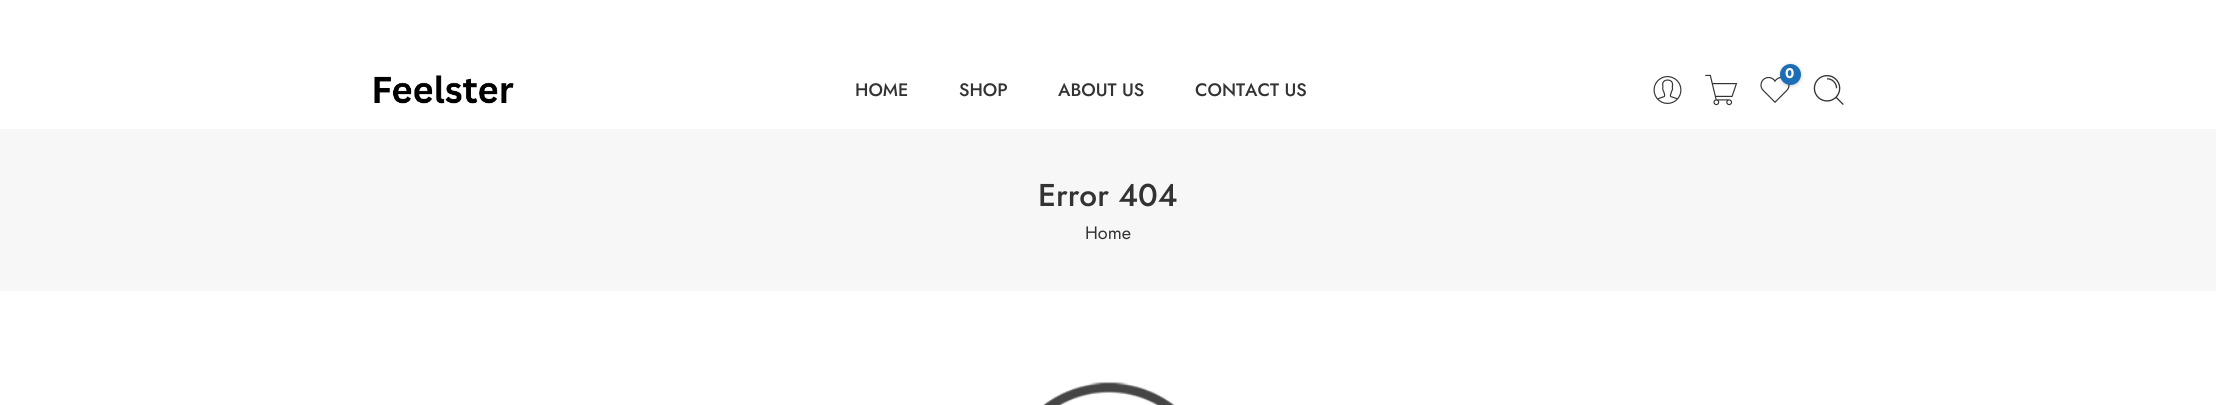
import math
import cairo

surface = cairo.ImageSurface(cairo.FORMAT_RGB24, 2216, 405)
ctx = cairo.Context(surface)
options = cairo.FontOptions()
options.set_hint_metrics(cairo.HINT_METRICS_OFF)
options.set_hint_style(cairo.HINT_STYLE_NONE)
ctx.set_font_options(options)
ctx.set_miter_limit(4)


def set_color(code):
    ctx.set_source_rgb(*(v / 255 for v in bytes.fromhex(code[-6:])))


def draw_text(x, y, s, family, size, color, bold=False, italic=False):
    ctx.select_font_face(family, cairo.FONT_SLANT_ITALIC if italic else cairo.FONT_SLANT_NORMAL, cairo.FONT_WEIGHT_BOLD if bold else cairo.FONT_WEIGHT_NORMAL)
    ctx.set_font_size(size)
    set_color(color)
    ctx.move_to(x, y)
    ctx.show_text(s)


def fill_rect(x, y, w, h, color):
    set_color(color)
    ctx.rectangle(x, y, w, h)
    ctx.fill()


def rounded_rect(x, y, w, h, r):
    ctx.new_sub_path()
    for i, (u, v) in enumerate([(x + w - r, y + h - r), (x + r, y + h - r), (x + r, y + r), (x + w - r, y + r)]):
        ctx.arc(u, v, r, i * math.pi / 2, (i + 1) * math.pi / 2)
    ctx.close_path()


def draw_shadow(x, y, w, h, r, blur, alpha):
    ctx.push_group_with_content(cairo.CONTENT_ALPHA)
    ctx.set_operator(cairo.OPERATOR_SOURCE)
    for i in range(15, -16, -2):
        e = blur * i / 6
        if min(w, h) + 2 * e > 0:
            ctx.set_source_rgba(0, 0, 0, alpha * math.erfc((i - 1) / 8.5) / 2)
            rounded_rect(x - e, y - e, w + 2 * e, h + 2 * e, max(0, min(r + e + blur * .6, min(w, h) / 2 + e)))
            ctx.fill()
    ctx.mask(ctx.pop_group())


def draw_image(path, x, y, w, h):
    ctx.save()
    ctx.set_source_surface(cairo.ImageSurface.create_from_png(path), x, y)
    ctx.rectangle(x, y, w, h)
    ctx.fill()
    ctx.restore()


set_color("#ffffff")
ctx.paint()
draw_image("assets/img1.png", 1653, 76, 29, 28)
draw_image("assets/img2.png", 1705, 74, 33, 32)
draw_image("assets/img3.png", 1760, 76, 30, 27)
set_color("#000000")
draw_shadow(1780, 65, 21, 21, 10.5, 2, 0.2)
set_color("#1b6db5")
ctx.arc(1790.5, 74.5, 10.5, 0, 2 * math.pi)
ctx.fill()
draw_text(1785, 78, "0", "Jost", 14, "#ffffff", bold=True)
draw_image("assets/img4.png", 1813, 75, 31, 30)
draw_image("assets/img5.png", 374, 75, 140, 29)
draw_text(855, 96, "HOME", "Jost Medium", 18, "#333333")
draw_text(959, 96, "SHOP", "Jost Medium", 18, "#333333")
draw_text(1058, 96, "ABOUT US", "Jost Medium", 18, "#333333")
draw_text(1195, 96, "CONTACT US", "Jost Medium", 18, "#333333")
fill_rect(0, 129, 2216, 162, "#f7f7f7")
draw_text(1038, 206, "Error 404", "Jost Medium", 31.5, "#333333")
draw_text(1085, 239, "Home", "Jost", 18, "#333333")
draw_image("assets/img6.png", 1043, 382, 132, 23)
surface.write_to_png("output.png")
